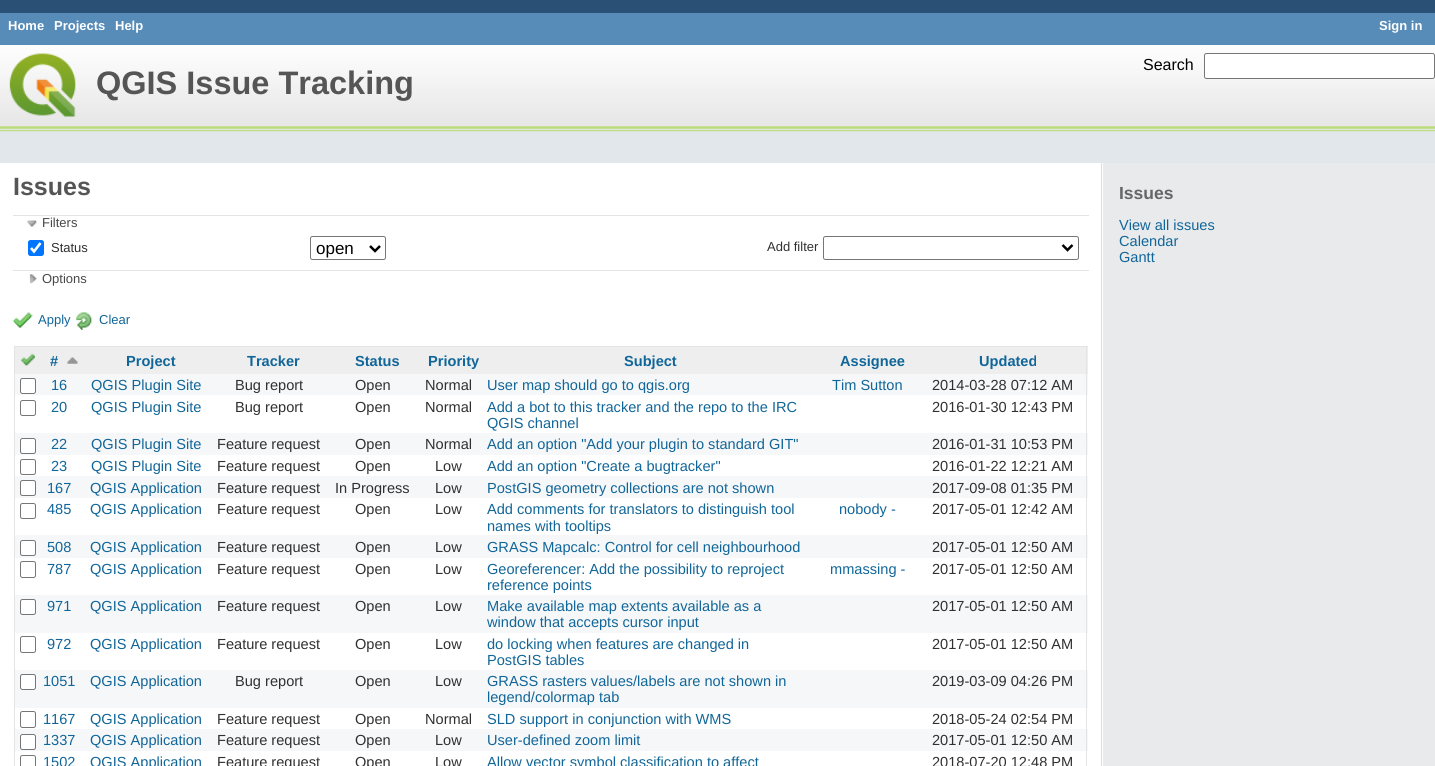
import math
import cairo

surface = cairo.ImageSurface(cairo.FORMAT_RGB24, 1435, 766)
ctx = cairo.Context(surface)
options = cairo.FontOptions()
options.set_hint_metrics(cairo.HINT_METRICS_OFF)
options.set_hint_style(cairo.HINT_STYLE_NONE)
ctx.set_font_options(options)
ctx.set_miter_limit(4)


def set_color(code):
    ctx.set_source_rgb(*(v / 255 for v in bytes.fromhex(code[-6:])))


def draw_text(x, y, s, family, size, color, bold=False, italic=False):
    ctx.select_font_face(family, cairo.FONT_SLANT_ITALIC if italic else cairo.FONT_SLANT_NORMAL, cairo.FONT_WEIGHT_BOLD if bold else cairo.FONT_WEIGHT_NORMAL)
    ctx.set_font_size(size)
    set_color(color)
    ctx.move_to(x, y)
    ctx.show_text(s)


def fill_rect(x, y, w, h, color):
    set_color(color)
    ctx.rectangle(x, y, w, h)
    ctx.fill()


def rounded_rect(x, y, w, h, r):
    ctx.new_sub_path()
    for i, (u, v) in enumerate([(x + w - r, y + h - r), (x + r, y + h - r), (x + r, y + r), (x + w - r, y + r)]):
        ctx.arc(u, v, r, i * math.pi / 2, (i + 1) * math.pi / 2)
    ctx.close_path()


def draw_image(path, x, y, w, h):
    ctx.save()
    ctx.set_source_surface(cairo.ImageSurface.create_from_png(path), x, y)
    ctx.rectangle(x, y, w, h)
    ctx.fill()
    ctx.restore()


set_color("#2a5075")
ctx.paint()
fill_rect(0, 13, 1435, 32, "#578bb8")
draw_text(8, 30, "Home", "Liberation Sans", 13, "#ffffff", bold=True)
draw_text(54, 30, "Projects", "Liberation Sans", 13, "#ffffff", bold=True)
draw_text(115, 30, "Help", "Liberation Sans", 13, "#ffffff", bold=True)
draw_text(1379, 30, "Sign in", "Liberation Sans", 13, "#ffffff", bold=True)
fill_rect(0, 131, 1435, 32, "#e2e7eb")
draw_image("assets/img1.png", 0, 45, 1435, 87)
draw_text(1143, 70, "Search", "Liberation Sans", 16, "#000000")
set_color("#ffffff")
rounded_rect(1204.5, 53.5, 230, 25, 2)
ctx.fill_preserve()
set_color("#767676")
ctx.set_line_width(1)
ctx.stroke()
draw_image("assets/img2.png", 9, 53, 67, 64)
draw_text(96, 94, "QGIS Issue Tracking", "Liberation Sans", 32.5, "#555555", bold=True)
fill_rect(1103, 163, 332, 603, "#e8eaec")
fill_rect(0, 163, 1103, 603, "#ffffff")
fill_rect(1101, 163, 1, 603, "#dddddd")
draw_text(13, 195, "Issues", "Liberation Sans", 25, "#555555", bold=True)
fill_rect(13, 215, 1076, 1, "#e4e4e4")
draw_image("assets/img3.png", 27, 220, 10, 7)
draw_text(42, 227, "Filters", "Liberation Sans", 13, "#484848")
set_color("#0075ff")
rounded_rect(28, 240, 16, 16, 2.5)
ctx.fill()
ctx.new_path()
ctx.move_to(31, 248)
ctx.line_to(34, 251.5)
ctx.line_to(40.5, 243)
set_color("#ffffff")
ctx.set_line_width(2.6)
ctx.stroke()
draw_text(51, 252, "Status", "Liberation Sans", 13, "#303030")
rounded_rect(310.5, 236.5, 75, 23, 2)
set_color("#767676")
ctx.set_line_width(1)
ctx.stroke()
ctx.new_path()
ctx.move_to(370, 246)
ctx.line_to(375, 251)
ctx.line_to(380, 246)
set_color("#000000")
ctx.set_line_width(2.5)
ctx.stroke()
draw_text(316, 254, "open", "Liberation Sans", 17, "#000000")
draw_text(767, 251, "Add filter", "Liberation Sans", 13, "#303030")
rounded_rect(823.5, 236.5, 255, 23, 2)
set_color("#767676")
ctx.set_line_width(1)
ctx.stroke()
ctx.new_path()
ctx.move_to(1062.5, 245)
ctx.line_to(1067.5, 250)
ctx.line_to(1072.5, 245)
set_color("#000000")
ctx.set_line_width(2.5)
ctx.stroke()
fill_rect(13, 270, 1076, 1, "#e4e4e4")
draw_image("assets/img4.png", 29, 274, 8, 10)
draw_text(42, 283, "Options", "Liberation Sans", 13, "#484848")
draw_image("assets/img5.png", 12, 312, 21, 16)
draw_text(38, 324, "Apply", "Liberation Sans", 13, "#116699")
draw_image("assets/img6.png", 76, 312, 16, 18)
draw_text(99, 324, "Clear", "Liberation Sans", 13, "#116699")
fill_rect(14, 346, 1074, 1, "#e4e4e4")
fill_rect(15, 347, 1073, 27, "#eeeeee")
fill_rect(15, 374, 1073, 21, "#f6f7f8")
fill_rect(15, 433, 1073, 22, "#f6f7f8")
fill_rect(15, 476, 1073, 22, "#f6f7f8")
fill_rect(15, 535, 1073, 23, "#f6f7f8")
fill_rect(15, 595, 1073, 38, "#f6f7f8")
fill_rect(15, 670, 1073, 38, "#f6f7f8")
fill_rect(15, 729, 1073, 22, "#f6f7f8")
fill_rect(1086, 346, 1, 420, "#e4e4e4")
fill_rect(14, 346, 1, 420, "#e4e4e4")
draw_image("assets/img7.png", 21, 353, 14, 14)
draw_text(50, 366, "#", "Liberation Sans", 14.6, "#116699", bold=True)
draw_image("assets/img8.png", 67, 357, 11, 7)
draw_text(126, 366, "Project", "Liberation Sans", 14.6, "#116699", bold=True)
draw_text(247, 366, "Tracker", "Liberation Sans", 14.6, "#116699", bold=True)
draw_text(355, 366, "Status", "Liberation Sans", 14.6, "#116699", bold=True)
draw_text(428, 366, "Priority", "Liberation Sans", 14.6, "#116699", bold=True)
draw_text(624, 366, "Subject", "Liberation Sans", 14.6, "#116699", bold=True)
draw_text(840, 366, "Assignee", "Liberation Sans", 14.6, "#116699", bold=True)
draw_text(979, 366, "Updated", "Liberation Sans", 14.6, "#116699", bold=True)
set_color("#ffffff")
rounded_rect(20.5, 378.5, 15, 15, 2)
ctx.fill_preserve()
set_color("#767676")
ctx.set_line_width(1)
ctx.stroke()
draw_text(51, 390, "16", "Liberation Sans", 14.6, "#116699")
draw_text(91, 390, "QGIS Plugin Site", "Liberation Sans", 14.6, "#116699")
draw_text(235, 390, "Bug report", "Liberation Sans", 14.6, "#303030")
draw_text(355, 390, "Open", "Liberation Sans", 14.6, "#303030")
draw_text(425, 390, "Normal", "Liberation Sans", 14.6, "#303030")
draw_text(487, 390, "User map should go to qgis.org", "Liberation Sans", 14.6, "#116699")
draw_text(832, 390, "Tim Sutton", "Liberation Sans", 14.6, "#116699")
draw_text(932, 390, "2014-03-28 07:12 AM", "Liberation Sans", 14.6, "#303030")
rounded_rect(20.5, 400.5, 15, 15, 2)
set_color("#767676")
ctx.stroke()
draw_text(51, 412, "20", "Liberation Sans", 14.6, "#116699")
draw_text(91, 412, "QGIS Plugin Site", "Liberation Sans", 14.6, "#116699")
draw_text(235, 412, "Bug report", "Liberation Sans", 14.6, "#303030")
draw_text(355, 412, "Open", "Liberation Sans", 14.6, "#303030")
draw_text(425, 412, "Normal", "Liberation Sans", 14.6, "#303030")
draw_text(487, 412, "Add a bot to this tracker and the repo to the IRC", "Liberation Sans", 14.6, "#116699")
draw_text(487, 428, "QGIS channel", "Liberation Sans", 14.6, "#116699")
draw_text(932, 412, "2016-01-30 12:43 PM", "Liberation Sans", 14.6, "#303030")
set_color("#ffffff")
rounded_rect(20.5, 438.5, 15, 15, 2)
ctx.fill_preserve()
set_color("#767676")
ctx.stroke()
draw_text(51, 449, "22", "Liberation Sans", 14.6, "#116699")
draw_text(91, 449, "QGIS Plugin Site", "Liberation Sans", 14.6, "#116699")
draw_text(217, 449, "Feature request", "Liberation Sans", 14.6, "#303030")
draw_text(355, 449, "Open", "Liberation Sans", 14.6, "#303030")
draw_text(425, 449, "Normal", "Liberation Sans", 14.6, "#303030")
draw_text(487, 449, "Add an option \"Add your plugin to standard GIT\"", "Liberation Sans", 14.6, "#116699")
draw_text(932, 449, "2016-01-31 10:53 PM", "Liberation Sans", 14.6, "#303030")
rounded_rect(20.5, 459.5, 15, 15, 2)
set_color("#767676")
ctx.stroke()
draw_text(51, 471, "23", "Liberation Sans", 14.6, "#116699")
draw_text(91, 471, "QGIS Plugin Site", "Liberation Sans", 14.6, "#116699")
draw_text(217, 471, "Feature request", "Liberation Sans", 14.6, "#303030")
draw_text(355, 471, "Open", "Liberation Sans", 14.6, "#303030")
draw_text(435, 471, "Low", "Liberation Sans", 14.6, "#303030")
draw_text(487, 471, "Add an option \"Create a bugtracker\"", "Liberation Sans", 14.6, "#116699")
draw_text(932, 471, "2016-01-22 12:21 AM", "Liberation Sans", 14.6, "#303030")
set_color("#ffffff")
rounded_rect(20.5, 480.5, 15, 15, 2)
ctx.fill_preserve()
set_color("#767676")
ctx.stroke()
draw_text(47, 493, "167", "Liberation Sans", 14.6, "#116699")
draw_text(90, 493, "QGIS Application", "Liberation Sans", 14.6, "#116699")
draw_text(217, 493, "Feature request", "Liberation Sans", 14.6, "#303030")
draw_text(335, 493, "In Progress", "Liberation Sans", 14.6, "#303030")
draw_text(435, 493, "Low", "Liberation Sans", 14.6, "#303030")
draw_text(487, 493, "PostGIS geometry collections are not shown", "Liberation Sans", 14.6, "#116699")
draw_text(932, 493, "2017-09-08 01:35 PM", "Liberation Sans", 14.6, "#303030")
rounded_rect(20.5, 503.5, 15, 15, 2)
set_color("#767676")
ctx.stroke()
draw_text(47, 514, "485", "Liberation Sans", 14.6, "#116699")
draw_text(90, 514, "QGIS Application", "Liberation Sans", 14.6, "#116699")
draw_text(217, 514, "Feature request", "Liberation Sans", 14.6, "#303030")
draw_text(355, 514, "Open", "Liberation Sans", 14.6, "#303030")
draw_text(435, 514, "Low", "Liberation Sans", 14.6, "#303030")
draw_text(487, 514, "Add comments for translators to distinguish tool", "Liberation Sans", 14.6, "#116699")
draw_text(487, 531, "names with tooltips", "Liberation Sans", 14.6, "#116699")
draw_text(839, 514, "nobody -", "Liberation Sans", 14.6, "#116699")
draw_text(932, 514, "2017-05-01 12:42 AM", "Liberation Sans", 14.6, "#303030")
set_color("#ffffff")
rounded_rect(20.5, 540.5, 15, 15, 2)
ctx.fill_preserve()
set_color("#767676")
ctx.stroke()
draw_text(47, 552, "508", "Liberation Sans", 14.6, "#116699")
draw_text(90, 552, "QGIS Application", "Liberation Sans", 14.6, "#116699")
draw_text(217, 552, "Feature request", "Liberation Sans", 14.6, "#303030")
draw_text(355, 552, "Open", "Liberation Sans", 14.6, "#303030")
draw_text(435, 552, "Low", "Liberation Sans", 14.6, "#303030")
draw_text(487, 552, "GRASS Mapcalc: Control for cell neighbourhood", "Liberation Sans", 14.6, "#116699")
draw_text(932, 552, "2017-05-01 12:50 AM", "Liberation Sans", 14.6, "#303030")
rounded_rect(20.5, 561.5, 15, 16, 2)
set_color("#767676")
ctx.stroke()
draw_text(47, 574, "787", "Liberation Sans", 14.6, "#116699")
draw_text(90, 574, "QGIS Application", "Liberation Sans", 14.6, "#116699")
draw_text(217, 574, "Feature request", "Liberation Sans", 14.6, "#303030")
draw_text(355, 574, "Open", "Liberation Sans", 14.6, "#303030")
draw_text(435, 574, "Low", "Liberation Sans", 14.6, "#303030")
draw_text(487, 574, "Georeferencer: Add the possibility to reproject", "Liberation Sans", 14.6, "#116699")
draw_text(487, 590, "reference points", "Liberation Sans", 14.6, "#116699")
draw_text(830, 574, "mmassing -", "Liberation Sans", 14.6, "#116699")
draw_text(932, 574, "2017-05-01 12:50 AM", "Liberation Sans", 14.6, "#303030")
set_color("#ffffff")
rounded_rect(20.5, 599.5, 15, 15, 2)
ctx.fill_preserve()
set_color("#767676")
ctx.stroke()
draw_text(47, 611, "971", "Liberation Sans", 14.6, "#116699")
draw_text(90, 611, "QGIS Application", "Liberation Sans", 14.6, "#116699")
draw_text(217, 611, "Feature request", "Liberation Sans", 14.6, "#303030")
draw_text(355, 611, "Open", "Liberation Sans", 14.6, "#303030")
draw_text(435, 611, "Low", "Liberation Sans", 14.6, "#303030")
draw_text(487, 611, "Make available map extents available as a", "Liberation Sans", 14.6, "#116699")
draw_text(487, 627, "window that accepts cursor input", "Liberation Sans", 14.6, "#116699")
draw_text(932, 611, "2017-05-01 12:50 AM", "Liberation Sans", 14.6, "#303030")
rounded_rect(20.5, 636.5, 15, 16, 2)
set_color("#767676")
ctx.stroke()
draw_text(47, 649, "972", "Liberation Sans", 14.6, "#116699")
draw_text(90, 649, "QGIS Application", "Liberation Sans", 14.6, "#116699")
draw_text(217, 649, "Feature request", "Liberation Sans", 14.6, "#303030")
draw_text(355, 649, "Open", "Liberation Sans", 14.6, "#303030")
draw_text(435, 649, "Low", "Liberation Sans", 14.6, "#303030")
draw_text(487, 649, "do locking when features are changed in", "Liberation Sans", 14.6, "#116699")
draw_text(487, 665, "PostGIS tables", "Liberation Sans", 14.6, "#116699")
draw_text(932, 649, "2017-05-01 12:50 AM", "Liberation Sans", 14.6, "#303030")
set_color("#ffffff")
rounded_rect(20.5, 674.5, 15, 15, 2)
ctx.fill_preserve()
set_color("#767676")
ctx.stroke()
draw_text(43, 686, "1051", "Liberation Sans", 14.6, "#116699")
draw_text(90, 686, "QGIS Application", "Liberation Sans", 14.6, "#116699")
draw_text(235, 686, "Bug report", "Liberation Sans", 14.6, "#303030")
draw_text(355, 686, "Open", "Liberation Sans", 14.6, "#303030")
draw_text(435, 686, "Low", "Liberation Sans", 14.6, "#303030")
draw_text(487, 686, "GRASS rasters values/labels are not shown in", "Liberation Sans", 14.6, "#116699")
draw_text(487, 702, "legend/colormap tab", "Liberation Sans", 14.6, "#116699")
draw_text(932, 686, "2019-03-09 04:26 PM", "Liberation Sans", 14.6, "#303030")
rounded_rect(20.5, 711.5, 15, 16, 2)
set_color("#767676")
ctx.stroke()
draw_text(43, 724, "1167", "Liberation Sans", 14.6, "#116699")
draw_text(90, 724, "QGIS Application", "Liberation Sans", 14.6, "#116699")
draw_text(217, 724, "Feature request", "Liberation Sans", 14.6, "#303030")
draw_text(355, 724, "Open", "Liberation Sans", 14.6, "#303030")
draw_text(425, 724, "Normal", "Liberation Sans", 14.6, "#303030")
draw_text(487, 724, "SLD support in conjunction with WMS", "Liberation Sans", 14.6, "#116699")
draw_text(932, 724, "2018-05-24 02:54 PM", "Liberation Sans", 14.6, "#303030")
set_color("#ffffff")
rounded_rect(20.5, 734.5, 15, 15, 2)
ctx.fill_preserve()
set_color("#767676")
ctx.stroke()
draw_text(43, 745, "1337", "Liberation Sans", 14.6, "#116699")
draw_text(90, 745, "QGIS Application", "Liberation Sans", 14.6, "#116699")
draw_text(217, 745, "Feature request", "Liberation Sans", 14.6, "#303030")
draw_text(355, 745, "Open", "Liberation Sans", 14.6, "#303030")
draw_text(435, 745, "Low", "Liberation Sans", 14.6, "#303030")
draw_text(487, 745, "User-defined zoom limit", "Liberation Sans", 14.6, "#116699")
draw_text(932, 745, "2017-05-01 12:50 AM", "Liberation Sans", 14.6, "#303030")
rounded_rect(20.5, 755.5, 15, 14, 2)
set_color("#767676")
ctx.stroke()
draw_text(43, 767, "1502", "Liberation Sans", 14.6, "#116699")
draw_text(90, 767, "QGIS Application", "Liberation Sans", 14.6, "#116699")
draw_text(217, 767, "Feature request", "Liberation Sans", 14.6, "#303030")
draw_text(355, 767, "Open", "Liberation Sans", 14.6, "#303030")
draw_text(435, 767, "Low", "Liberation Sans", 14.6, "#303030")
draw_text(487, 767, "Allow vector symbol classification to affect", "Liberation Sans", 14.6, "#116699")
draw_text(932, 767, "2018-07-20 12:48 PM", "Liberation Sans", 14.6, "#303030")
draw_text(1119, 199, "Issues", "Liberation Sans", 17.5, "#666666", bold=True)
draw_text(1119, 230, "View all issues", "Liberation Sans", 14.6, "#116699")
draw_text(1119, 246, "Calendar", "Liberation Sans", 14.6, "#116699")
draw_text(1119, 262, "Gantt", "Liberation Sans", 14.6, "#116699")
surface.write_to_png("output.png")
